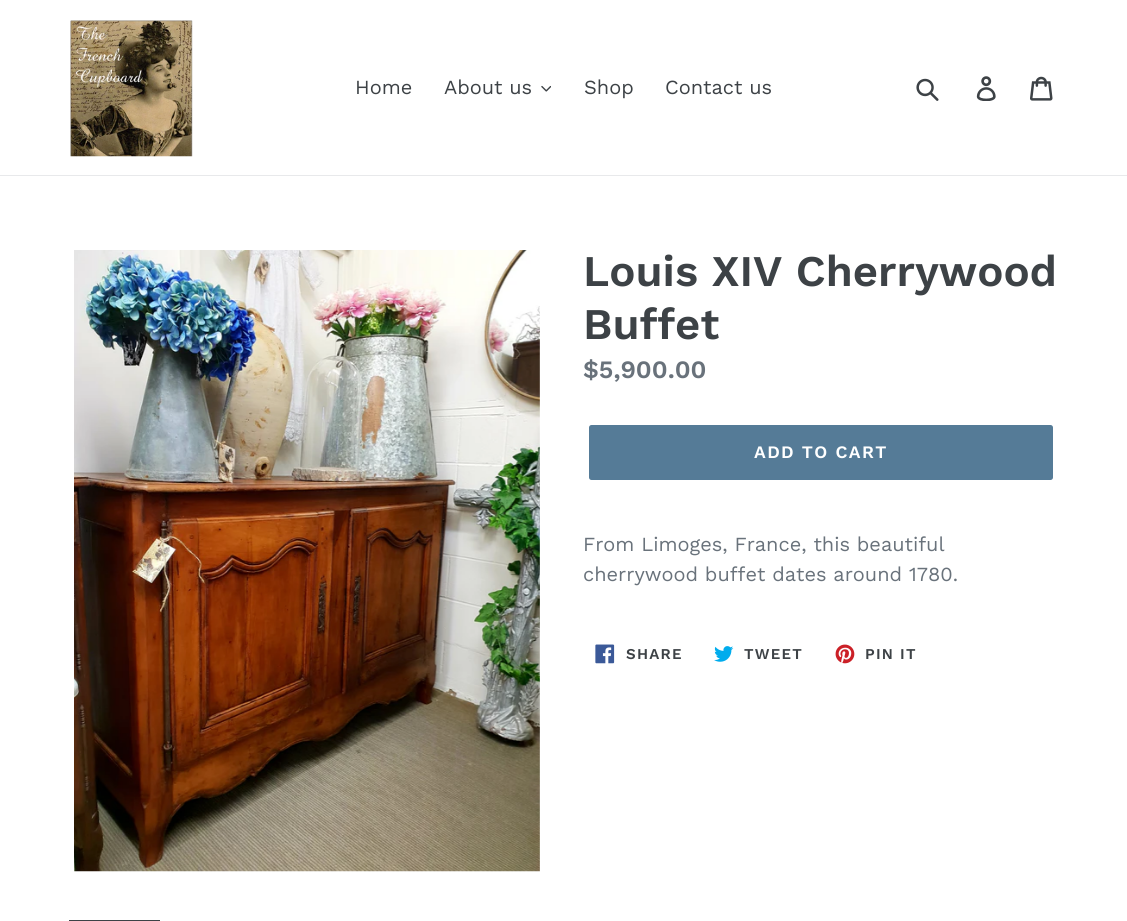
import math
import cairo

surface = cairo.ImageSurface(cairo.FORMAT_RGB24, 1127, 921)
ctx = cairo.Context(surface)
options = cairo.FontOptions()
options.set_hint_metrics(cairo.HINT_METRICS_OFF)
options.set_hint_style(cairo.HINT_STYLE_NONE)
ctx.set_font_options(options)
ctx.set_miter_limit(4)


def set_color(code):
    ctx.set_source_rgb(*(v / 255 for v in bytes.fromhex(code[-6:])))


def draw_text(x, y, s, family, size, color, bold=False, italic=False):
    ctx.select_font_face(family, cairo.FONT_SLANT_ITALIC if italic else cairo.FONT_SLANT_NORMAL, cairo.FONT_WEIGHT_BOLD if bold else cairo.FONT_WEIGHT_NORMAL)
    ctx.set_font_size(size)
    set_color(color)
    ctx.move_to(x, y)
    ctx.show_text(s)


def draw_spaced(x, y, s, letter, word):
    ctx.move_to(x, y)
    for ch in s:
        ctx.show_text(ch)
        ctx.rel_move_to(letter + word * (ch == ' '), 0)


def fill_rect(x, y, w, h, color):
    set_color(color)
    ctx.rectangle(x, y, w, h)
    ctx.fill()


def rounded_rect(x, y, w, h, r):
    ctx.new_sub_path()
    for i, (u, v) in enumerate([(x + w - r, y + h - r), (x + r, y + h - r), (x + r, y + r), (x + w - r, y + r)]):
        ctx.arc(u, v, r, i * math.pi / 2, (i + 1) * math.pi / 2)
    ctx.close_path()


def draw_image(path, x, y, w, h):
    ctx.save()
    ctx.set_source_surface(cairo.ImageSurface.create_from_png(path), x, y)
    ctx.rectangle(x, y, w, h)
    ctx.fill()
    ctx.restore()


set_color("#ffffff")
ctx.paint()
fill_rect(0, 175, 1127, 1, "#e8e9eb")
draw_image("assets/img1.png", 70, 20, 123, 137)
draw_text(355, 94, "Home", "Work Sans", 20, "#3d4246")
draw_text(444, 94, "About us", "Work Sans", 20, "#3d4246")
draw_image("assets/img2.png", 541, 85, 10, 7)
draw_text(584, 94, "Shop", "Work Sans", 20, "#3d4246")
draw_text(665, 94, "Contact us", "Work Sans", 20, "#3d4246")
draw_image("assets/img3.png", 916, 78, 23, 23)
draw_image("assets/img4.png", 976, 76, 20, 25)
draw_image("assets/img5.png", 1030, 76, 23, 25)
draw_image("assets/img6.png", 74, 250, 466, 622)
ctx.rectangle(70.5, 921.5, 88, 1)
ctx.set_line_width(3)
ctx.stroke()
draw_text(583, 286, "Louis XIV Cherrywood", "Work Sans SemiBold", 43.75, "#3d4246")
draw_text(583, 339, "Buffet", "Work Sans SemiBold", 43.75, "#3d4246")
draw_text(583, 378, "$5,900.00", "Work Sans SemiBold", 25, "#69727b")
set_color("#557b97")
rounded_rect(589, 425, 464, 55, 2.5)
ctx.fill()
ctx.set_font_size(17.5)
set_color("#ffffff")
draw_spaced(754, 458, "ADD TO CART", 1.4, 0)
draw_text(583, 551, "From Limoges, France, this beautiful", "Work Sans", 20, "#69727b")
draw_text(583, 581, "cherrywood buffet dates around 1780.", "Work Sans", 20, "#69727b")
draw_image("assets/img7.png", 595, 644, 20, 20)
ctx.select_font_face("Work Sans SemiBold")
ctx.set_font_size(15)
set_color("#3d4246")
draw_spaced(626, 659, "SHARE", 1.25, 0)
draw_image("assets/img8.png", 714, 646, 20, 16)
draw_spaced(744, 659, "TWEET", 1.25, 0)
draw_image("assets/img9.png", 835, 644, 20, 20)
draw_spaced(865, 659, "PIN IT", 1.25, 0)
surface.write_to_png("output.png")
